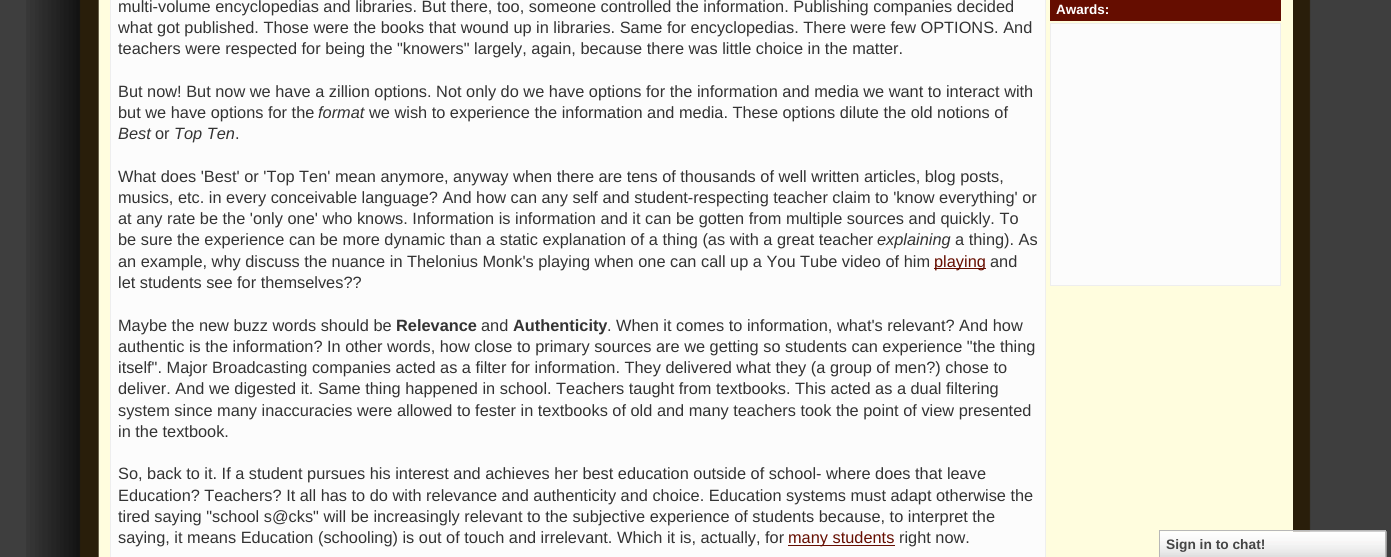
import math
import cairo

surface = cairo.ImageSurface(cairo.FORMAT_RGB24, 1391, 557)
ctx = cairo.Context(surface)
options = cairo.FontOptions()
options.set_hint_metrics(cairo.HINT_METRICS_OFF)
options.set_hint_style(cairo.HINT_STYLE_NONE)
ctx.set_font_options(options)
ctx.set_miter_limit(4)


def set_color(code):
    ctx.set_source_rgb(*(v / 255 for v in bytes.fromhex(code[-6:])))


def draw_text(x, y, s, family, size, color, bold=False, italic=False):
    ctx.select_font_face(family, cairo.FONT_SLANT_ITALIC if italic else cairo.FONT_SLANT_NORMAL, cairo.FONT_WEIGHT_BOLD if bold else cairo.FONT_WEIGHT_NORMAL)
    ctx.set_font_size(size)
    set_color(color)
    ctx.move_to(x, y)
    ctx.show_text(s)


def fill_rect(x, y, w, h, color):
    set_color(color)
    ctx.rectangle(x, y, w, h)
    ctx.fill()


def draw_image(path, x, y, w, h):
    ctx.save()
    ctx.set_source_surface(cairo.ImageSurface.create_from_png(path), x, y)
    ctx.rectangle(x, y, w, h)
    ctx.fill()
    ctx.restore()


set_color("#3e3e3e")
ctx.paint()
draw_image("assets/img1.png", 26, 0, 1285, 557)
fill_rect(1292, 0, 1, 557, "#fffddf")
set_color("#fcfcfc")
ctx.rectangle(110.5, -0.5, 935, 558)
ctx.fill_preserve()
set_color("#eeeeee")
ctx.set_line_width(1)
ctx.stroke()
draw_text(118, 12, "multi-volume encyclopedias and libraries. But there, too, someone controlled the information. Publishing companies decided", "Liberation Sans", 16.35, "#333333")
draw_text(118, 33, "what got published. Those were the books that wound up in libraries. Same for encyclopedias. There were few OPTIONS. And", "Liberation Sans", 16.35, "#333333")
draw_text(118, 54, "teachers were respected for being the \"knowers\" largely, again, because there was little choice in the matter.", "Liberation Sans", 16.35, "#333333")
draw_text(118, 97, "But now! But now we have a zillion options. Not only do we have options for the information and media we want to interact with", "Liberation Sans", 16.35, "#333333")
draw_text(118, 118, "but we have options for the", "Liberation Sans", 16.35, "#333333")
draw_text(318, 118, "format", "Liberation Sans", 16.35, "#333333", italic=True)
draw_text(369, 118, "we wish to experience the information and media. These options dilute the old notions of", "Liberation Sans", 16.35, "#333333")
draw_text(118, 139, "Best", "Liberation Sans", 16.35, "#333333", italic=True)
draw_text(155, 139, "or", "Liberation Sans", 16.35, "#333333")
draw_text(174, 139, "Top Ten", "Liberation Sans", 16.35, "#333333", italic=True)
draw_text(235, 139, ".", "Liberation Sans", 16.35, "#333333")
draw_text(118, 182, "What does 'Best' or 'Top Ten' mean anymore, anyway when there are tens of thousands of well written articles, blog posts,", "Liberation Sans", 16.35, "#333333")
draw_text(118, 203, "musics, etc. in every conceivable language? And how can any self and student-respecting teacher claim to 'know everything' or", "Liberation Sans", 16.35, "#333333")
draw_text(118, 224, "at any rate be the 'only one' who knows. Information is information and it can be gotten from multiple sources and quickly. To", "Liberation Sans", 16.35, "#333333")
draw_text(118, 245, "be sure the experience can be more dynamic than a static explanation of a thing (as with a great teacher", "Liberation Sans", 16.35, "#333333")
draw_text(877, 245, "explaining", "Liberation Sans", 16.35, "#333333", italic=True)
draw_text(955, 245, "a thing). As", "Liberation Sans", 16.35, "#333333")
draw_text(118, 267, "an example, why discuss the nuance in Thelonius Monk's playing when one can call up a You Tube video of him", "Liberation Sans", 16.35, "#333333")
fill_rect(934, 268, 52, 1, "#650d00")
draw_text(934, 267, "playing", "Liberation Sans", 16.35, "#650d00")
draw_text(990, 267, "and", "Liberation Sans", 16.35, "#333333")
draw_text(118, 288, "let students see for themselves??", "Liberation Sans", 16.35, "#333333")
draw_text(118, 331, "Maybe the new buzz words should be", "Liberation Sans", 16.35, "#333333")
draw_text(396, 331, "Relevance", "Liberation Sans", 16.35, "#333333", bold=True)
draw_text(481, 331, "and", "Liberation Sans", 16.35, "#333333")
draw_text(513, 331, "Authenticity", "Liberation Sans", 16.35, "#333333", bold=True)
draw_text(607, 331, ". When it comes to information, what's relevant? And how", "Liberation Sans", 16.35, "#333333")
draw_text(118, 352, "authentic is the information? In other words, how close to primary sources are we getting so students can experience \"the thing", "Liberation Sans", 16.35, "#333333")
draw_text(118, 373, "itself\". Major Broadcasting companies acted as a filter for information. They delivered what they (a group of men?) chose to", "Liberation Sans", 16.35, "#333333")
draw_text(118, 394, "deliver. And we digested it. Same thing happened in school. Teachers taught from textbooks. This acted as a dual filtering", "Liberation Sans", 16.35, "#333333")
draw_text(118, 416, "system since many inaccuracies were allowed to fester in textbooks of old and many teachers took the point of view presented", "Liberation Sans", 16.35, "#333333")
draw_text(118, 437, "in the textbook.", "Liberation Sans", 16.35, "#333333")
draw_text(118, 479, "So, back to it. If a student pursues his interest and achieves her best education outside of school- where does that leave", "Liberation Sans", 16.35, "#333333")
draw_text(118, 501, "Education? Teachers? It all has to do with relevance and authenticity and choice. Education systems must adapt otherwise the", "Liberation Sans", 16.35, "#333333")
draw_text(118, 522, "tired saying \"school s@cks\" will be increasingly relevant to the subjective experience of students because, to interpret the", "Liberation Sans", 16.35, "#333333")
draw_text(118, 543, "saying, it means Education (schooling) is out of touch and irrelevant. Which it is, actually, for", "Liberation Sans", 16.35, "#333333")
fill_rect(788, 545, 107, 1, "#650d00")
draw_text(788, 543, "many students", "Liberation Sans", 16.35, "#650d00")
draw_text(899, 543, "right now.", "Liberation Sans", 16.35, "#333333")
fill_rect(1050, 0, 231, 21, "#650d00")
draw_text(1056, 14, "Awards:", "Liberation Sans", 13.5, "#ffffff", bold=True)
set_color("#fcfcfc")
ctx.rectangle(1050.5, 23.5, 230, 262)
ctx.fill_preserve()
set_color("#eeeeee")
ctx.stroke()
draw_image("assets/img2.png", 1160, 531, 227, 26)
ctx.rectangle(1159.5, 530.5, 226, 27)
set_color("#b7b7b7")
ctx.stroke()
draw_text(1166, 549, "Sign in to chat!", "Liberation Sans", 13.75, "#454545", bold=True)
surface.write_to_png("output.png")
